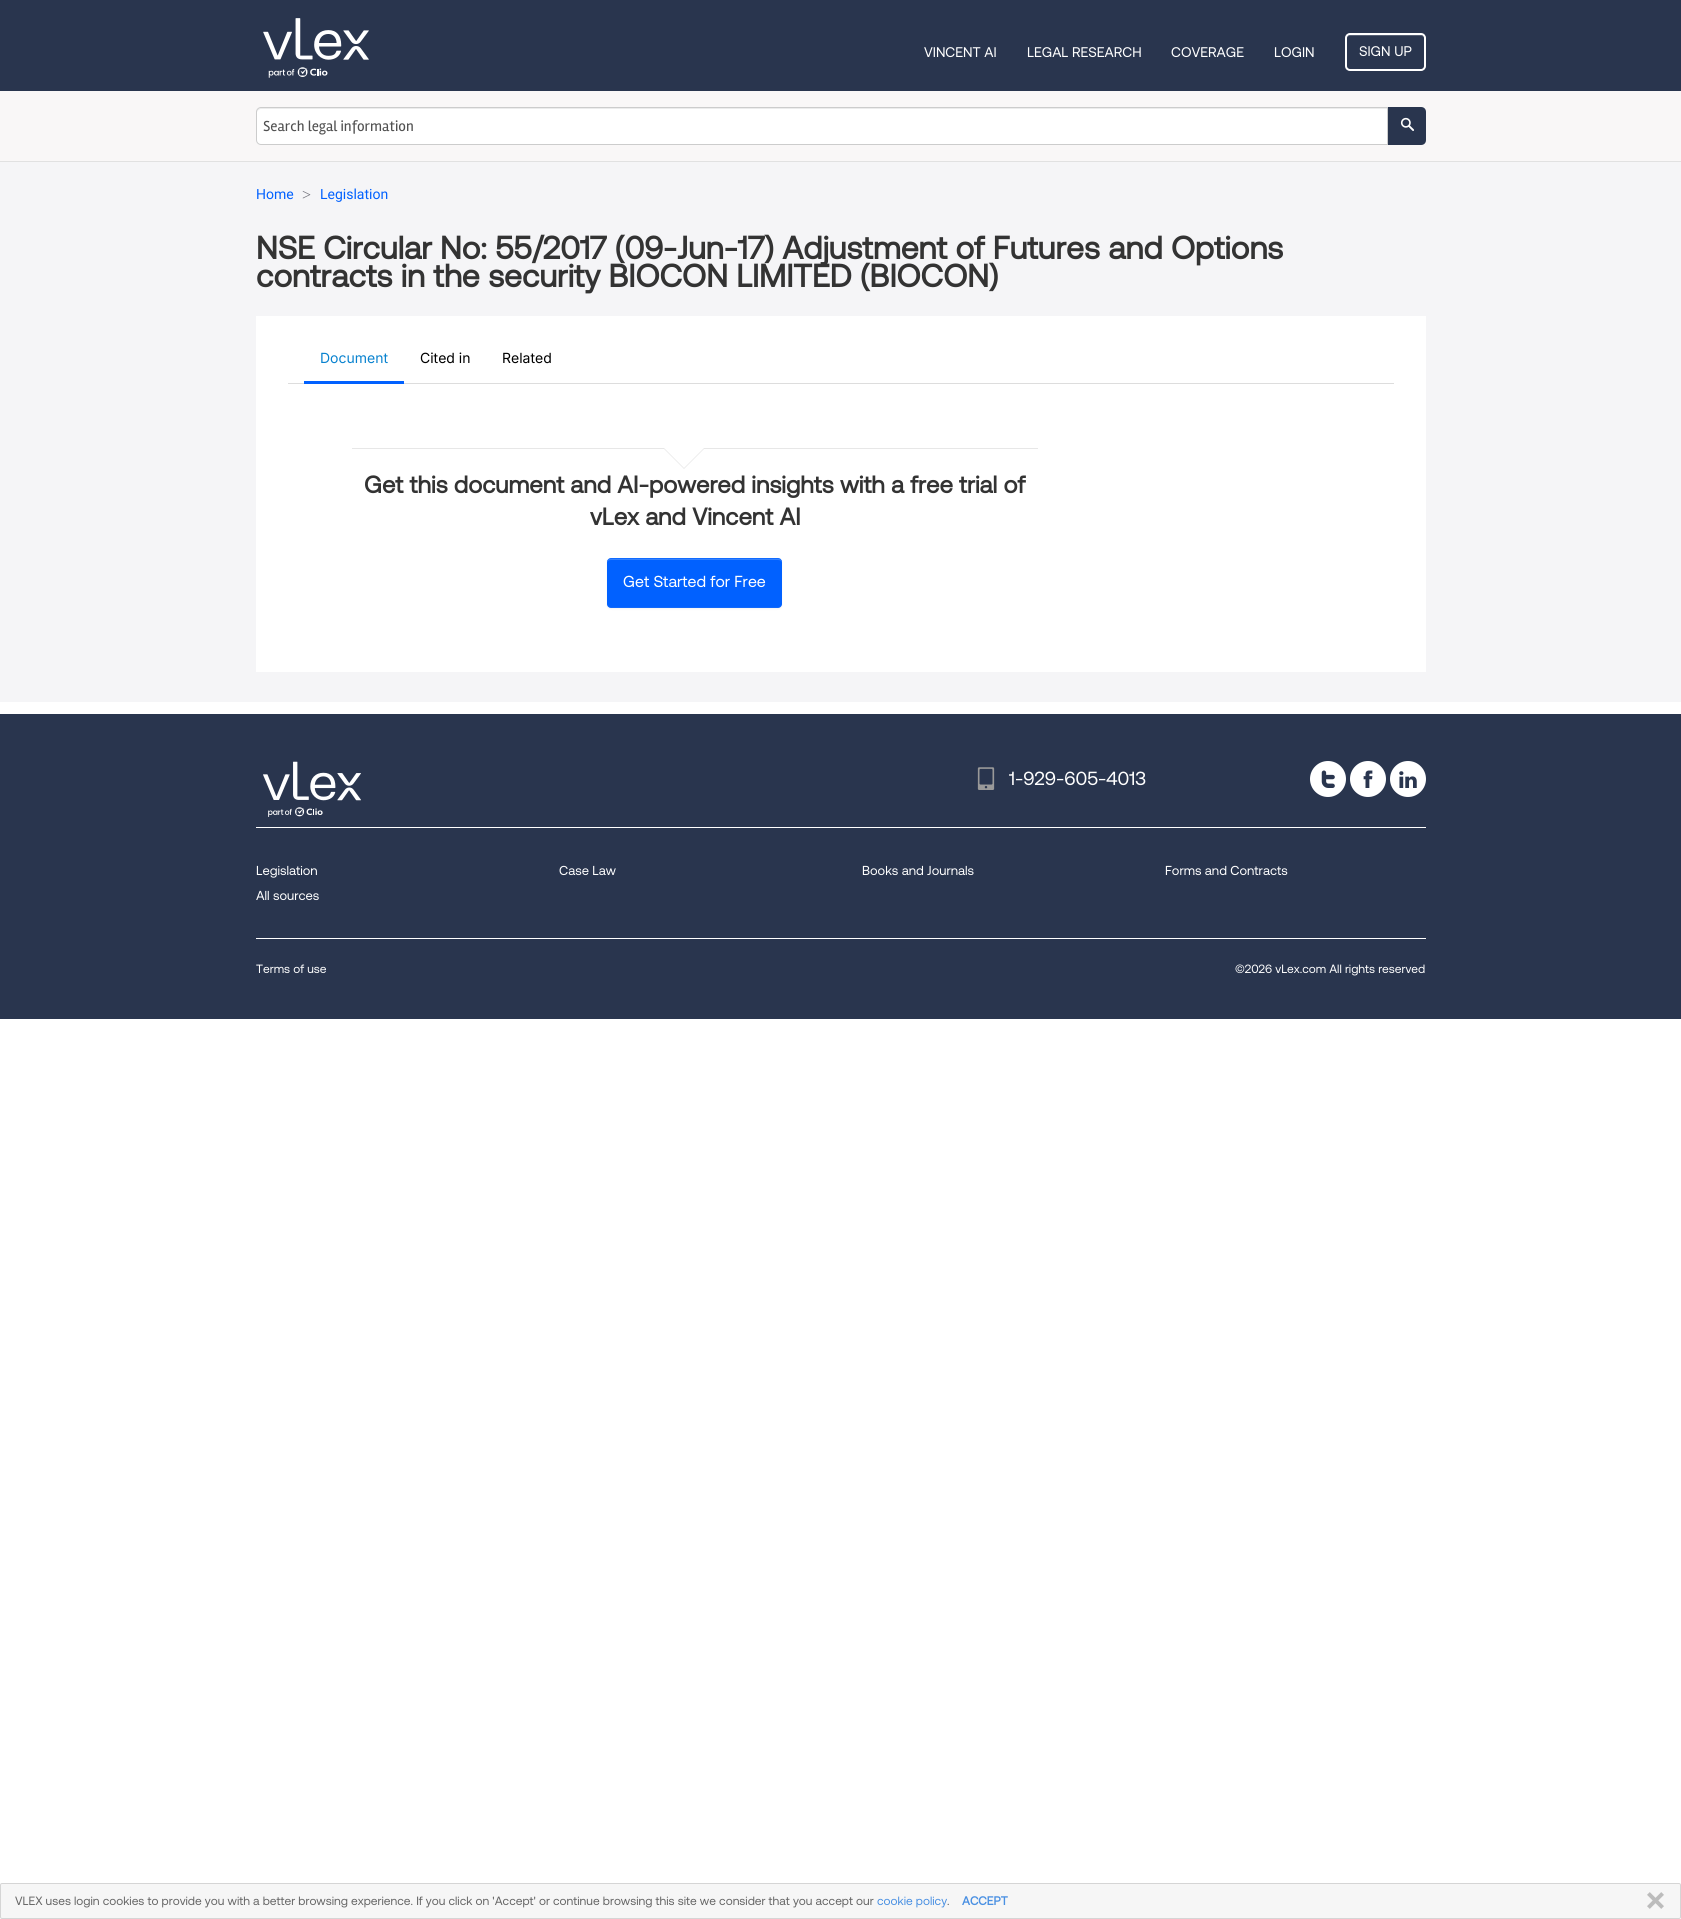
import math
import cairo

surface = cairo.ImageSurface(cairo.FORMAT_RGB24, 1681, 1919)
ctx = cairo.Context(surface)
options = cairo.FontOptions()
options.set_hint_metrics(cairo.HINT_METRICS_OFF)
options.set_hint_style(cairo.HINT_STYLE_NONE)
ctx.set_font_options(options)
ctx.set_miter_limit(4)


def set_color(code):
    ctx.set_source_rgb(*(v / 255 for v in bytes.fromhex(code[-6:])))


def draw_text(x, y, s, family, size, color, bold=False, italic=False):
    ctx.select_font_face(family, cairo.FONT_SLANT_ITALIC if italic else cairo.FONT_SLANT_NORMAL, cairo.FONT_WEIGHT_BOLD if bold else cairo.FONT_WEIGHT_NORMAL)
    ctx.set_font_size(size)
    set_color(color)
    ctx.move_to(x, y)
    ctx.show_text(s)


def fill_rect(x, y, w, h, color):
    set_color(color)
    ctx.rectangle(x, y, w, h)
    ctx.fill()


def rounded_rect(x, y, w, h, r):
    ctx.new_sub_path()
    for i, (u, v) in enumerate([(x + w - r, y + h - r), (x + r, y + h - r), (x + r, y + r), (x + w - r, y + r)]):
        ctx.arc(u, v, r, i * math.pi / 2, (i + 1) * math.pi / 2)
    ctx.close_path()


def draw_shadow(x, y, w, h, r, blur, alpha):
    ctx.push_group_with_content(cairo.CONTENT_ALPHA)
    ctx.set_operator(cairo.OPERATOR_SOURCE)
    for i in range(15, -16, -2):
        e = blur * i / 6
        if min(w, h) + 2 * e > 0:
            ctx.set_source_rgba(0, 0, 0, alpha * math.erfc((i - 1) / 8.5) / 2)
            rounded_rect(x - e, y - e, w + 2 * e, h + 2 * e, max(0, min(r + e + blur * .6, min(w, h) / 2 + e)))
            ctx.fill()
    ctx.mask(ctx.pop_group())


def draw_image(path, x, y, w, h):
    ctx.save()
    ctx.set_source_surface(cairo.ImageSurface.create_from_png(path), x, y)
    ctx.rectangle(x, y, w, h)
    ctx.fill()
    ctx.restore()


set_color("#ffffff")
ctx.paint()
fill_rect(0, 0, 1681, 91, "#29354e")
draw_image("assets/img1.png", 263, 18, 106, 60)
draw_text(924, 57, "VINCENT AI", "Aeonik", 14, "#ffffff")
draw_text(1027, 57, "LEGAL RESEARCH", "Aeonik", 14, "#ffffff")
draw_text(1171, 57, "COVERAGE", "Aeonik", 14, "#ffffff")
draw_text(1274, 57, "LOGIN", "Aeonik", 14, "#ffffff")
set_color("#545d71")
ctx.new_path()
ctx.move_to(1350, 36)
ctx.line_to(1421, 36)
ctx.curve_to(1423, 36, 1424, 37, 1424, 39)
ctx.curve_to(1424, 32, 1413, 35, 1409, 35)
ctx.line_to(1362, 35)
ctx.curve_to(1358, 35, 1347, 32, 1347, 39)
ctx.curve_to(1347, 37, 1348, 36, 1350, 36)
ctx.close_path()
ctx.fill()
rounded_rect(1346, 34, 79, 36, 4)
set_color("#ffffff")
ctx.stroke()
draw_text(1359, 56, "SIGN UP", "Aeonik", 14, "#ffffff")
fill_rect(0, 91, 1681, 70, "#f9f7f7")
fill_rect(0, 161, 1681, 1, "#e1e1e1")
set_color("#ffffff")
ctx.new_path()
ctx.move_to(261, 107)
ctx.line_to(1388, 107)
ctx.line_to(1388, 145)
ctx.line_to(261, 145)
ctx.curve_to(258, 145, 256, 143, 256, 140)
ctx.line_to(256, 112)
ctx.curve_to(256, 109, 258, 107, 261, 107)
ctx.close_path()
ctx.fill()
set_color("#ececec")
ctx.new_path()
ctx.move_to(261, 109)
ctx.line_to(1387, 109)
ctx.line_to(1387, 108)
ctx.line_to(261, 108)
ctx.curve_to(258, 108, 257, 110, 257, 113)
ctx.curve_to(257, 111, 259, 109, 261, 109)
ctx.close_path()
ctx.fill()
ctx.new_path()
ctx.move_to(261, 107.5)
ctx.line_to(1387.5, 107.5)
ctx.line_to(1387.5, 144.5)
ctx.line_to(261, 144.5)
ctx.curve_to(258.5, 144.5, 256.5, 142.5, 256.5, 140)
ctx.line_to(256.5, 112)
ctx.curve_to(256.5, 109.5, 258.5, 107.5, 261, 107.5)
ctx.close_path()
set_color("#cccccc")
ctx.set_line_width(1)
ctx.stroke()
draw_text(263, 131, "Search legal information", "Rambla", 15, "#505050")
set_color("#29354e")
ctx.new_path()
ctx.move_to(1388, 107)
ctx.line_to(1421, 107)
ctx.curve_to(1424, 107, 1426, 109, 1426, 112)
ctx.line_to(1426, 140)
ctx.curve_to(1426, 143, 1424, 145, 1421, 145)
ctx.line_to(1388, 145)
ctx.close_path()
ctx.fill()
draw_image("assets/img2.png", 1400, 117, 14, 14)
fill_rect(0, 162, 1681, 540, "#f5f5f7")
draw_text(256, 199, "Home", "Roboto", 14, "#0161ff")
draw_text(302, 200, ">", "Liberation Serif", 16, "#71717a")
draw_text(320, 199, "Legislation", "Roboto", 14, "#0161ff")
draw_text(256, 259, "NSE Circular No: 55/2017 (09-Jun-17) Adjustment of Futures and Options", "Aeonik", 32, "#333333", bold=True)
draw_text(256, 287, "contracts in the security BIOCON LIMITED (BIOCON)", "Aeonik", 32, "#333333", bold=True)
fill_rect(256, 316, 1170, 356, "#ffffff")
fill_rect(288, 383, 1106, 1, "#dddddd")
draw_text(320, 363, "Document", "Inter", 14, "#0882cf")
fill_rect(304, 381, 100, 3, "#0161ff")
draw_text(420, 363, "Cited in", "Inter", 14, "#000000")
draw_text(502, 363, "Related", "Inter", 14, "#000000")
fill_rect(352, 448, 686, 1, "#e7e7e7")
ctx.new_path()
ctx.move_to(663, 448)
ctx.line_to(705, 448)
ctx.line_to(684, 469)
ctx.close_path()
ctx.fill()
set_color("#ffffff")
ctx.new_path()
ctx.move_to(664, 448)
ctx.line_to(704, 448)
ctx.line_to(684, 468)
ctx.close_path()
ctx.fill()
draw_text(364, 493, "Get this document and AI-powered insights with a free trial of", "Aeonik", 24, "#333333", bold=True)
draw_text(590, 525, "vLex and Vincent AI", "Aeonik", 24, "#333333", bold=True)
set_color("#000000")
draw_shadow(607, 559, 175, 50, 4, 1, 0.05)
set_color("#0161ff")
rounded_rect(607, 558, 175, 50, 4)
ctx.fill()
set_color("#3481ff")
ctx.new_path()
ctx.move_to(611, 560)
ctx.line_to(778, 560)
ctx.curve_to(780, 560, 782, 561, 782, 563)
ctx.line_to(782, 562)
ctx.curve_to(782, 560, 780, 559, 778, 559)
ctx.line_to(611, 559)
ctx.curve_to(609, 559, 607, 560, 607, 562)
ctx.line_to(607, 563)
ctx.curve_to(607, 561, 609, 560, 611, 560)
ctx.close_path()
ctx.fill()
ctx.set_source_rgba(0.659, 0.796, 1, 0.1)
ctx.new_path()
ctx.move_to(611, 558)
ctx.curve_to(609, 558, 607, 560, 607, 562)
ctx.curve_to(607, 560, 609, 559, 611, 559)
ctx.line_to(778, 559)
ctx.curve_to(780, 559, 782, 560, 782, 562)
ctx.curve_to(782, 560, 780, 558, 778, 558)
ctx.close_path()
ctx.fill()
ctx.set_source_rgba(0.643, 0.741, 0.859, 0.1)
ctx.new_path()
ctx.move_to(778, 608)
ctx.curve_to(780, 608, 782, 606, 782, 604)
ctx.curve_to(782, 606, 780, 607, 778, 607)
ctx.line_to(611, 607)
ctx.curve_to(609, 607, 607, 606, 607, 604)
ctx.curve_to(607, 606, 609, 608, 611, 608)
ctx.close_path()
ctx.fill()
draw_text(623, 587, "Get Started for Free", "Aeonik", 16, "#ffffff")
fill_rect(0, 714, 1681, 305, "#29354e")
fill_rect(256, 827, 1170, 1, "#ffffff")
draw_image("assets/img3.png", 263, 761, 98, 56)
draw_image("assets/img4.png", 977, 767, 18, 23)
draw_text(1009, 785, "1-929-605-4013", "Aeonik", 19, "#ffffff")
ctx.new_path()
ctx.arc(1328, 779, 18, 0, 2 * math.pi)
ctx.fill()
draw_image("assets/img5.png", 1321, 770, 14, 18)
ctx.arc(1368, 779, 18, 0, 2 * math.pi)
ctx.fill()
draw_image("assets/img6.png", 1363, 770, 10, 18)
ctx.arc(1408, 779, 18, 0, 2 * math.pi)
ctx.fill()
draw_image("assets/img7.png", 1399, 771, 18, 17)
fill_rect(256, 938, 1170, 1, "#ffffff")
draw_text(256, 875, "Legislation", "Aeonik", 13, "#ffffff")
draw_text(256, 900, "All sources", "Aeonik", 13, "#ffffff")
draw_text(559, 875, "Case Law", "Aeonik", 13, "#ffffff")
draw_text(862, 875, "Books and Journals", "Aeonik", 13, "#ffffff")
draw_text(1165, 875, "Forms and Contracts", "Aeonik", 13, "#ffffff")
draw_text(256, 973, "Terms of use", "Aeonik", 12, "#ffffff")
draw_text(1235, 973, "©2026 vLex.com All rights reserved", "Aeonik", 12, "#ffffff")
set_color("#f6f6f6")
rounded_rect(0.5, 1883.5, 1680, 35, 1.5)
ctx.fill_preserve()
set_color("#d5d5d5")
ctx.stroke()
draw_text(15, 1905, "VLEX uses login cookies to provide you with a better browsing experience. If you click on 'Accept' or continue browsing this site we consider that you accept our", "Aeonik", 12, "#666666")
draw_text(877, 1905, "cookie policy", "Aeonik", 12, "#4a90e2")
draw_text(947, 1905, ".", "Aeonik", 12, "#666666")
draw_text(962, 1905, "ACCEPT", "Aeonik", 12, "#4a90e2", bold=True)
draw_image("assets/img8.png", 1647, 1892, 17, 17)
surface.write_to_png("output.png")
